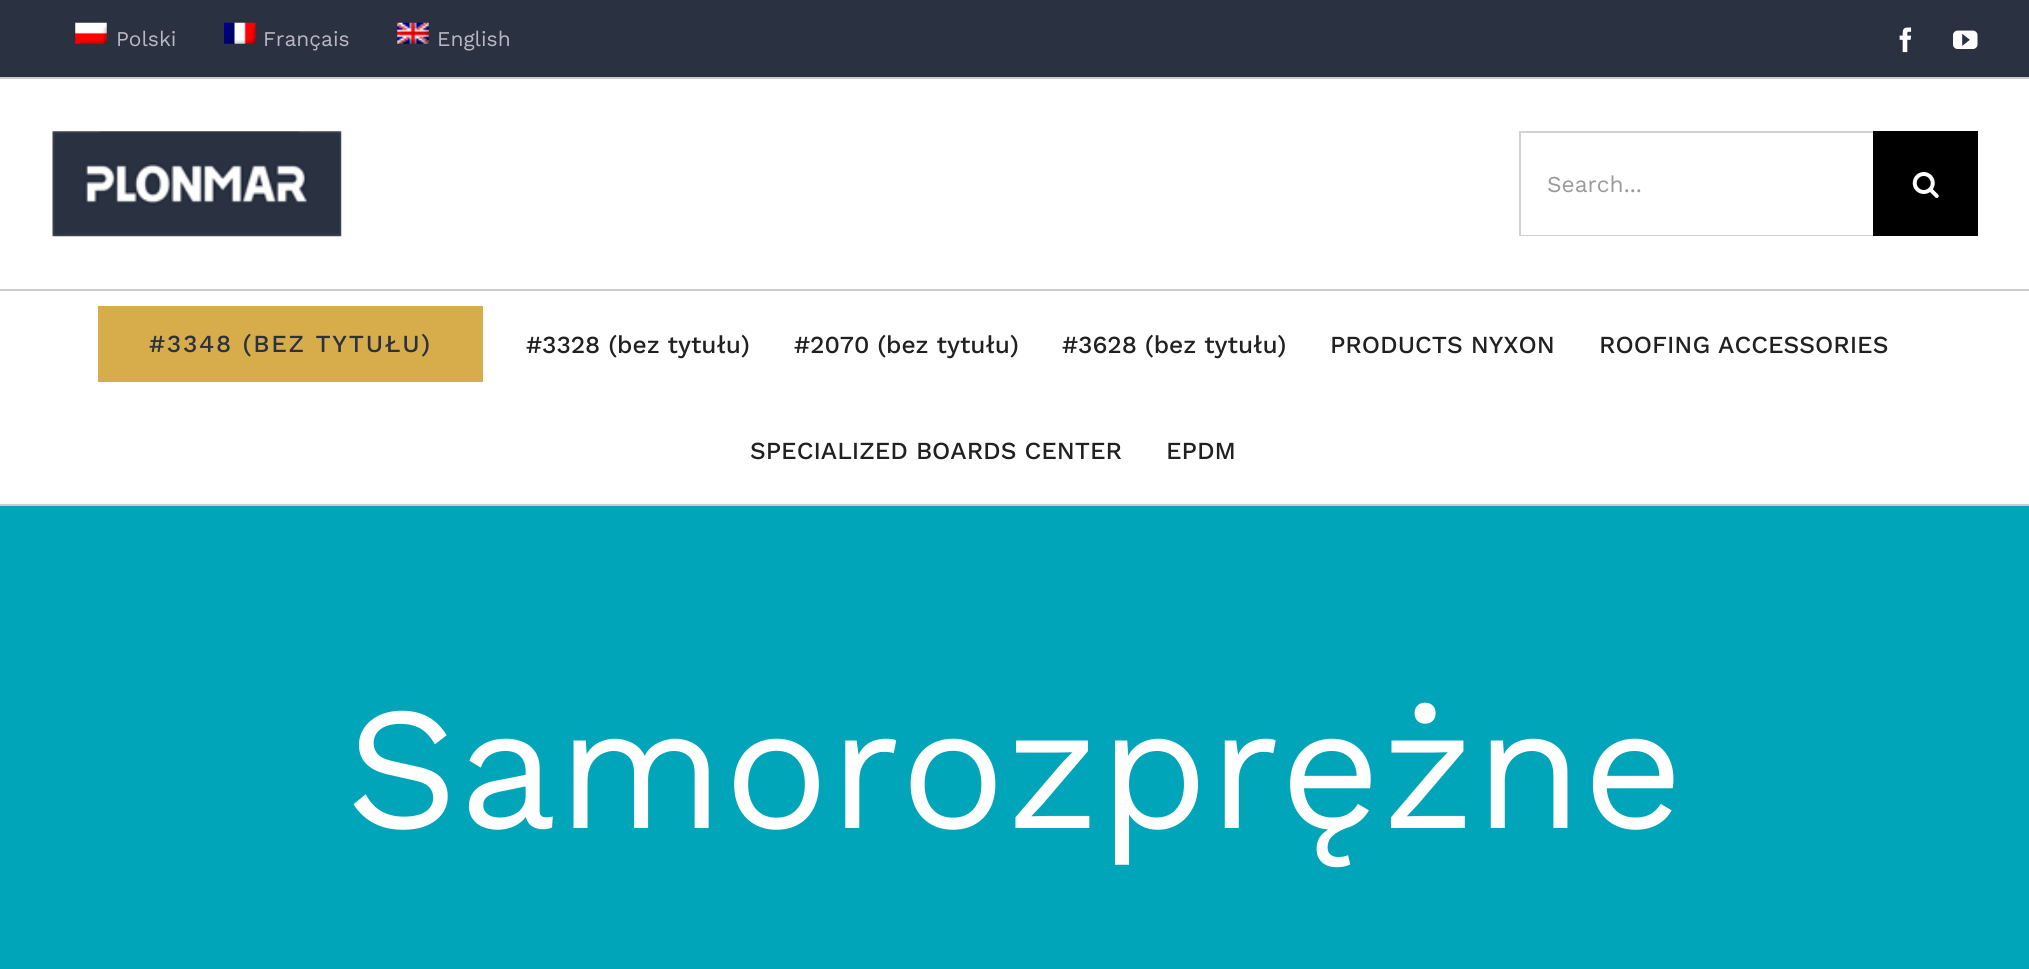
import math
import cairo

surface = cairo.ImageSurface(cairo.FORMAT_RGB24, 2029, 969)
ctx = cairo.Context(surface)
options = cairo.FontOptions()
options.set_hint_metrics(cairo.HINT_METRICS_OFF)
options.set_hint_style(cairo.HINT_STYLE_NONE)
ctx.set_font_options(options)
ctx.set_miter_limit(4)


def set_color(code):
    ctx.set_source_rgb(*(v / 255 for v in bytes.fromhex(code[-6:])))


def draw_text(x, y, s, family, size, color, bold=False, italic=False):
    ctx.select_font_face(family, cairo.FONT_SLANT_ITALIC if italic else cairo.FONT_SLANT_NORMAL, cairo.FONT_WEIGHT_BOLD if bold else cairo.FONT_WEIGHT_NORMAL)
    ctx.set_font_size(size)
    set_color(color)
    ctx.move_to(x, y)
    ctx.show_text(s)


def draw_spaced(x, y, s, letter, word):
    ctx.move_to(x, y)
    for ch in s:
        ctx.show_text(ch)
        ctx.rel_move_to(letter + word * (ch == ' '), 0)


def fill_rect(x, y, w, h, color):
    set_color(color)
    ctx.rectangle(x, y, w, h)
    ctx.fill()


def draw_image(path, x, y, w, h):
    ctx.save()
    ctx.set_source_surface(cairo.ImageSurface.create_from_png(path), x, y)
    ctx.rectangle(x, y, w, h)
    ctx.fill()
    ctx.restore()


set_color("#ffffff")
ctx.paint()
fill_rect(0, 0, 2029, 77, "#2a3141")
fill_rect(0, 77, 2029, 2, "#cccccc")
draw_image("assets/img1.png", 75, 22, 32, 22)
draw_text(116, 46, "Polski", "Work Sans", 21, "#bbb7c2")
draw_image("assets/img2.png", 224, 22, 32, 22)
draw_text(263, 46, "Français", "Work Sans", 21, "#bbb7c2")
draw_image("assets/img3.png", 397, 22, 32, 22)
draw_text(437, 46, "English", "Work Sans", 21, "#bbb7c2")
draw_image("assets/img4.png", 1899, 27, 13, 26)
draw_image("assets/img5.png", 1953, 30, 25, 19)
fill_rect(0, 289, 2029, 2, "#cccccc")
draw_image("assets/img6.png", 52, 131, 290, 106)
fill_rect(1519, 131, 354, 2, "#d2d2d2")
fill_rect(1519, 235, 354, 1, "#d2d2d2")
fill_rect(1519, 131, 2, 105, "#d2d2d2")
draw_text(1547, 192, "Search...", "Work Sans", 22.75, "#9a9a9a")
fill_rect(1873, 131, 105, 105, "#000000")
draw_image("assets/img7.png", 1912, 172, 27, 26)
fill_rect(0, 504, 2029, 2, "#cccccc")
fill_rect(98, 306, 385, 76, "#d7ad4b")
ctx.select_font_face("Work Sans Medium")
ctx.set_font_size(24.5)
set_color("#2a3141")
draw_spaced(149, 352, "#3348 (BEZ TYTUŁU)", 1.75, 0)
draw_text(526, 353, "#3328 (bez tytułu)", "Work Sans Medium", 24.5, "#212121")
draw_text(794, 353, "#2070 (bez tytułu)", "Work Sans Medium", 24.5, "#212121")
draw_text(1062, 353, "#3628 (bez tytułu)", "Work Sans Medium", 24.5, "#212121")
draw_text(1330, 353, "PRODUCTS NYXON", "Work Sans Medium", 24.5, "#212121")
draw_text(1599, 353, "ROOFING ACCESSORIES", "Work Sans Medium", 24.5, "#212121")
draw_text(750, 459, "SPECIALIZED BOARDS CENTER", "Work Sans Medium", 24.5, "#212121")
draw_text(1166, 459, "EPDM", "Work Sans Medium", 24.5, "#212121")
fill_rect(0, 506, 2029, 463, "#00a5b9")
draw_text(346, 828, "Samorozprężne", "Work Sans", 175, "#ffffff")
surface.write_to_png("output.png")
